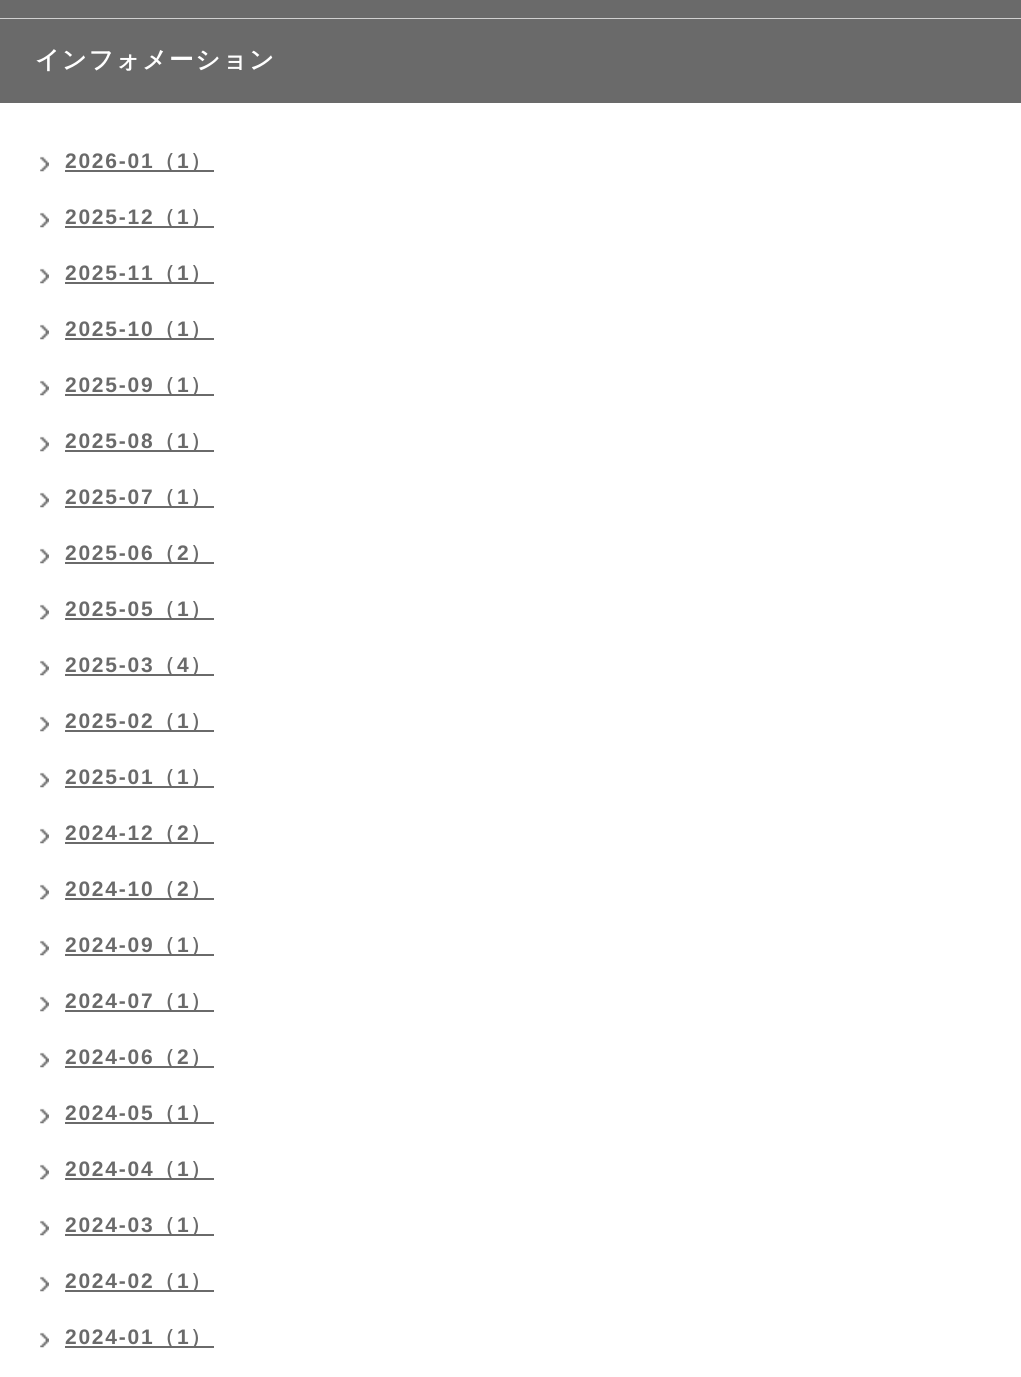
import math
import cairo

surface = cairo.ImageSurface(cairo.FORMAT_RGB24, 1021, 1377)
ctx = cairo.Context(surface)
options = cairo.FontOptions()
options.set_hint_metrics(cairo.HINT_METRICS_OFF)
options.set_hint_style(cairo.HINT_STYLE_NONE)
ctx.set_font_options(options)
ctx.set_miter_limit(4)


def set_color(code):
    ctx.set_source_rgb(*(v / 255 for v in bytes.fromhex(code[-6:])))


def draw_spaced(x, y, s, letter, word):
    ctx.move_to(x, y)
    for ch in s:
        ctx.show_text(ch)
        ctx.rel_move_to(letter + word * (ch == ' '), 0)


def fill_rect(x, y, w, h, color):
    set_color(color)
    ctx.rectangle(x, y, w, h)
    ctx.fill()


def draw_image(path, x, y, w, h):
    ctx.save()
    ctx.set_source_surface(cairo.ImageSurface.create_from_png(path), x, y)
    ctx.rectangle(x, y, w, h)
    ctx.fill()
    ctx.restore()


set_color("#ffffff")
ctx.paint()
fill_rect(0, 18, 1021, 1, "#d0d0d0")
fill_rect(0, 0, 1021, 18, "#6a6a6a")
fill_rect(0, 19, 1021, 84, "#6a6a6a")
ctx.select_font_face("WenQuanYi Zen Hei", cairo.FONT_SLANT_NORMAL, cairo.FONT_WEIGHT_BOLD)
ctx.set_font_size(24.5)
set_color("#ffffff")
draw_spaced(35, 68, "インフォメーション", 1.75, 0)
draw_image("assets/img1.png", 40, 156, 9, 16)
ctx.select_font_face("Liberation Sans", cairo.FONT_SLANT_NORMAL, cairo.FONT_WEIGHT_BOLD)
ctx.set_font_size(21)
set_color("#6a6a6a")
draw_spaced(65, 168, "2026-01", 1.75, 0)
fill_rect(65, 170, 149, 2, "#6a6a6a")
ctx.select_font_face("WenQuanYi Zen Hei", cairo.FONT_SLANT_NORMAL, cairo.FONT_WEIGHT_BOLD)
draw_spaced(154, 168, "（", 1.75, 0)
ctx.select_font_face("Liberation Sans", cairo.FONT_SLANT_NORMAL, cairo.FONT_WEIGHT_BOLD)
draw_spaced(177, 168, "1", 1.75, 0)
ctx.select_font_face("WenQuanYi Zen Hei", cairo.FONT_SLANT_NORMAL, cairo.FONT_WEIGHT_BOLD)
draw_spaced(190, 168, "）", 1.75, 0)
draw_image("assets/img1.png", 40, 212, 9, 16)
ctx.select_font_face("Liberation Sans", cairo.FONT_SLANT_NORMAL, cairo.FONT_WEIGHT_BOLD)
draw_spaced(65, 224, "2025-12", 1.75, 0)
fill_rect(65, 226, 149, 2, "#6a6a6a")
ctx.select_font_face("WenQuanYi Zen Hei", cairo.FONT_SLANT_NORMAL, cairo.FONT_WEIGHT_BOLD)
draw_spaced(154, 224, "（", 1.75, 0)
ctx.select_font_face("Liberation Sans", cairo.FONT_SLANT_NORMAL, cairo.FONT_WEIGHT_BOLD)
draw_spaced(177, 224, "1", 1.75, 0)
ctx.select_font_face("WenQuanYi Zen Hei", cairo.FONT_SLANT_NORMAL, cairo.FONT_WEIGHT_BOLD)
draw_spaced(190, 224, "）", 1.75, 0)
draw_image("assets/img1.png", 40, 268, 9, 16)
ctx.select_font_face("Liberation Sans", cairo.FONT_SLANT_NORMAL, cairo.FONT_WEIGHT_BOLD)
draw_spaced(65, 280, "2025-11", 1.75, 0)
fill_rect(65, 282, 149, 2, "#6a6a6a")
ctx.select_font_face("WenQuanYi Zen Hei", cairo.FONT_SLANT_NORMAL, cairo.FONT_WEIGHT_BOLD)
draw_spaced(154, 280, "（", 1.75, 0)
ctx.select_font_face("Liberation Sans", cairo.FONT_SLANT_NORMAL, cairo.FONT_WEIGHT_BOLD)
draw_spaced(177, 280, "1", 1.75, 0)
ctx.select_font_face("WenQuanYi Zen Hei", cairo.FONT_SLANT_NORMAL, cairo.FONT_WEIGHT_BOLD)
draw_spaced(190, 280, "）", 1.75, 0)
draw_image("assets/img1.png", 40, 324, 9, 16)
ctx.select_font_face("Liberation Sans", cairo.FONT_SLANT_NORMAL, cairo.FONT_WEIGHT_BOLD)
draw_spaced(65, 336, "2025-10", 1.75, 0)
fill_rect(65, 338, 149, 2, "#6a6a6a")
ctx.select_font_face("WenQuanYi Zen Hei", cairo.FONT_SLANT_NORMAL, cairo.FONT_WEIGHT_BOLD)
draw_spaced(154, 336, "（", 1.75, 0)
ctx.select_font_face("Liberation Sans", cairo.FONT_SLANT_NORMAL, cairo.FONT_WEIGHT_BOLD)
draw_spaced(177, 336, "1", 1.75, 0)
ctx.select_font_face("WenQuanYi Zen Hei", cairo.FONT_SLANT_NORMAL, cairo.FONT_WEIGHT_BOLD)
draw_spaced(190, 336, "）", 1.75, 0)
draw_image("assets/img1.png", 40, 380, 9, 16)
ctx.select_font_face("Liberation Sans", cairo.FONT_SLANT_NORMAL, cairo.FONT_WEIGHT_BOLD)
draw_spaced(65, 392, "2025-09", 1.75, 0)
fill_rect(65, 394, 149, 2, "#6a6a6a")
ctx.select_font_face("WenQuanYi Zen Hei", cairo.FONT_SLANT_NORMAL, cairo.FONT_WEIGHT_BOLD)
draw_spaced(154, 392, "（", 1.75, 0)
ctx.select_font_face("Liberation Sans", cairo.FONT_SLANT_NORMAL, cairo.FONT_WEIGHT_BOLD)
draw_spaced(177, 392, "1", 1.75, 0)
ctx.select_font_face("WenQuanYi Zen Hei", cairo.FONT_SLANT_NORMAL, cairo.FONT_WEIGHT_BOLD)
draw_spaced(190, 392, "）", 1.75, 0)
draw_image("assets/img1.png", 40, 436, 9, 16)
ctx.select_font_face("Liberation Sans", cairo.FONT_SLANT_NORMAL, cairo.FONT_WEIGHT_BOLD)
draw_spaced(65, 448, "2025-08", 1.75, 0)
fill_rect(65, 450, 149, 2, "#6a6a6a")
ctx.select_font_face("WenQuanYi Zen Hei", cairo.FONT_SLANT_NORMAL, cairo.FONT_WEIGHT_BOLD)
draw_spaced(154, 448, "（", 1.75, 0)
ctx.select_font_face("Liberation Sans", cairo.FONT_SLANT_NORMAL, cairo.FONT_WEIGHT_BOLD)
draw_spaced(177, 448, "1", 1.75, 0)
ctx.select_font_face("WenQuanYi Zen Hei", cairo.FONT_SLANT_NORMAL, cairo.FONT_WEIGHT_BOLD)
draw_spaced(190, 448, "）", 1.75, 0)
draw_image("assets/img1.png", 40, 492, 9, 16)
ctx.select_font_face("Liberation Sans", cairo.FONT_SLANT_NORMAL, cairo.FONT_WEIGHT_BOLD)
draw_spaced(65, 504, "2025-07", 1.75, 0)
fill_rect(65, 506, 149, 2, "#6a6a6a")
ctx.select_font_face("WenQuanYi Zen Hei", cairo.FONT_SLANT_NORMAL, cairo.FONT_WEIGHT_BOLD)
draw_spaced(154, 504, "（", 1.75, 0)
ctx.select_font_face("Liberation Sans", cairo.FONT_SLANT_NORMAL, cairo.FONT_WEIGHT_BOLD)
draw_spaced(177, 504, "1", 1.75, 0)
ctx.select_font_face("WenQuanYi Zen Hei", cairo.FONT_SLANT_NORMAL, cairo.FONT_WEIGHT_BOLD)
draw_spaced(190, 504, "）", 1.75, 0)
draw_image("assets/img1.png", 40, 548, 9, 16)
ctx.select_font_face("Liberation Sans", cairo.FONT_SLANT_NORMAL, cairo.FONT_WEIGHT_BOLD)
draw_spaced(65, 560, "2025-06", 1.75, 0)
fill_rect(65, 562, 149, 2, "#6a6a6a")
ctx.select_font_face("WenQuanYi Zen Hei", cairo.FONT_SLANT_NORMAL, cairo.FONT_WEIGHT_BOLD)
draw_spaced(154, 560, "（", 1.75, 0)
ctx.select_font_face("Liberation Sans", cairo.FONT_SLANT_NORMAL, cairo.FONT_WEIGHT_BOLD)
draw_spaced(177, 560, "2", 1.75, 0)
ctx.select_font_face("WenQuanYi Zen Hei", cairo.FONT_SLANT_NORMAL, cairo.FONT_WEIGHT_BOLD)
draw_spaced(190, 560, "）", 1.75, 0)
draw_image("assets/img1.png", 40, 604, 9, 16)
ctx.select_font_face("Liberation Sans", cairo.FONT_SLANT_NORMAL, cairo.FONT_WEIGHT_BOLD)
draw_spaced(65, 616, "2025-05", 1.75, 0)
fill_rect(65, 618, 149, 2, "#6a6a6a")
ctx.select_font_face("WenQuanYi Zen Hei", cairo.FONT_SLANT_NORMAL, cairo.FONT_WEIGHT_BOLD)
draw_spaced(154, 616, "（", 1.75, 0)
ctx.select_font_face("Liberation Sans", cairo.FONT_SLANT_NORMAL, cairo.FONT_WEIGHT_BOLD)
draw_spaced(177, 616, "1", 1.75, 0)
ctx.select_font_face("WenQuanYi Zen Hei", cairo.FONT_SLANT_NORMAL, cairo.FONT_WEIGHT_BOLD)
draw_spaced(190, 616, "）", 1.75, 0)
draw_image("assets/img1.png", 40, 660, 9, 16)
ctx.select_font_face("Liberation Sans", cairo.FONT_SLANT_NORMAL, cairo.FONT_WEIGHT_BOLD)
draw_spaced(65, 672, "2025-03", 1.75, 0)
fill_rect(65, 674, 149, 2, "#6a6a6a")
ctx.select_font_face("WenQuanYi Zen Hei", cairo.FONT_SLANT_NORMAL, cairo.FONT_WEIGHT_BOLD)
draw_spaced(154, 672, "（", 1.75, 0)
ctx.select_font_face("Liberation Sans", cairo.FONT_SLANT_NORMAL, cairo.FONT_WEIGHT_BOLD)
draw_spaced(177, 672, "4", 1.75, 0)
ctx.select_font_face("WenQuanYi Zen Hei", cairo.FONT_SLANT_NORMAL, cairo.FONT_WEIGHT_BOLD)
draw_spaced(190, 672, "）", 1.75, 0)
draw_image("assets/img1.png", 40, 716, 9, 16)
ctx.select_font_face("Liberation Sans", cairo.FONT_SLANT_NORMAL, cairo.FONT_WEIGHT_BOLD)
draw_spaced(65, 728, "2025-02", 1.75, 0)
fill_rect(65, 730, 149, 2, "#6a6a6a")
ctx.select_font_face("WenQuanYi Zen Hei", cairo.FONT_SLANT_NORMAL, cairo.FONT_WEIGHT_BOLD)
draw_spaced(154, 728, "（", 1.75, 0)
ctx.select_font_face("Liberation Sans", cairo.FONT_SLANT_NORMAL, cairo.FONT_WEIGHT_BOLD)
draw_spaced(177, 728, "1", 1.75, 0)
ctx.select_font_face("WenQuanYi Zen Hei", cairo.FONT_SLANT_NORMAL, cairo.FONT_WEIGHT_BOLD)
draw_spaced(190, 728, "）", 1.75, 0)
draw_image("assets/img1.png", 40, 772, 9, 16)
ctx.select_font_face("Liberation Sans", cairo.FONT_SLANT_NORMAL, cairo.FONT_WEIGHT_BOLD)
draw_spaced(65, 784, "2025-01", 1.75, 0)
fill_rect(65, 786, 149, 2, "#6a6a6a")
ctx.select_font_face("WenQuanYi Zen Hei", cairo.FONT_SLANT_NORMAL, cairo.FONT_WEIGHT_BOLD)
draw_spaced(154, 784, "（", 1.75, 0)
ctx.select_font_face("Liberation Sans", cairo.FONT_SLANT_NORMAL, cairo.FONT_WEIGHT_BOLD)
draw_spaced(177, 784, "1", 1.75, 0)
ctx.select_font_face("WenQuanYi Zen Hei", cairo.FONT_SLANT_NORMAL, cairo.FONT_WEIGHT_BOLD)
draw_spaced(190, 784, "）", 1.75, 0)
draw_image("assets/img1.png", 40, 828, 9, 16)
ctx.select_font_face("Liberation Sans", cairo.FONT_SLANT_NORMAL, cairo.FONT_WEIGHT_BOLD)
draw_spaced(65, 840, "2024-12", 1.75, 0)
fill_rect(65, 842, 149, 2, "#6a6a6a")
ctx.select_font_face("WenQuanYi Zen Hei", cairo.FONT_SLANT_NORMAL, cairo.FONT_WEIGHT_BOLD)
draw_spaced(154, 840, "（", 1.75, 0)
ctx.select_font_face("Liberation Sans", cairo.FONT_SLANT_NORMAL, cairo.FONT_WEIGHT_BOLD)
draw_spaced(177, 840, "2", 1.75, 0)
ctx.select_font_face("WenQuanYi Zen Hei", cairo.FONT_SLANT_NORMAL, cairo.FONT_WEIGHT_BOLD)
draw_spaced(190, 840, "）", 1.75, 0)
draw_image("assets/img1.png", 40, 884, 9, 16)
ctx.select_font_face("Liberation Sans", cairo.FONT_SLANT_NORMAL, cairo.FONT_WEIGHT_BOLD)
draw_spaced(65, 896, "2024-10", 1.75, 0)
fill_rect(65, 898, 149, 2, "#6a6a6a")
ctx.select_font_face("WenQuanYi Zen Hei", cairo.FONT_SLANT_NORMAL, cairo.FONT_WEIGHT_BOLD)
draw_spaced(154, 896, "（", 1.75, 0)
ctx.select_font_face("Liberation Sans", cairo.FONT_SLANT_NORMAL, cairo.FONT_WEIGHT_BOLD)
draw_spaced(177, 896, "2", 1.75, 0)
ctx.select_font_face("WenQuanYi Zen Hei", cairo.FONT_SLANT_NORMAL, cairo.FONT_WEIGHT_BOLD)
draw_spaced(190, 896, "）", 1.75, 0)
draw_image("assets/img1.png", 40, 940, 9, 16)
ctx.select_font_face("Liberation Sans", cairo.FONT_SLANT_NORMAL, cairo.FONT_WEIGHT_BOLD)
draw_spaced(65, 952, "2024-09", 1.75, 0)
fill_rect(65, 954, 149, 2, "#6a6a6a")
ctx.select_font_face("WenQuanYi Zen Hei", cairo.FONT_SLANT_NORMAL, cairo.FONT_WEIGHT_BOLD)
draw_spaced(154, 952, "（", 1.75, 0)
ctx.select_font_face("Liberation Sans", cairo.FONT_SLANT_NORMAL, cairo.FONT_WEIGHT_BOLD)
draw_spaced(177, 952, "1", 1.75, 0)
ctx.select_font_face("WenQuanYi Zen Hei", cairo.FONT_SLANT_NORMAL, cairo.FONT_WEIGHT_BOLD)
draw_spaced(190, 952, "）", 1.75, 0)
draw_image("assets/img1.png", 40, 996, 9, 16)
ctx.select_font_face("Liberation Sans", cairo.FONT_SLANT_NORMAL, cairo.FONT_WEIGHT_BOLD)
draw_spaced(65, 1008, "2024-07", 1.75, 0)
fill_rect(65, 1010, 149, 2, "#6a6a6a")
ctx.select_font_face("WenQuanYi Zen Hei", cairo.FONT_SLANT_NORMAL, cairo.FONT_WEIGHT_BOLD)
draw_spaced(154, 1008, "（", 1.75, 0)
ctx.select_font_face("Liberation Sans", cairo.FONT_SLANT_NORMAL, cairo.FONT_WEIGHT_BOLD)
draw_spaced(177, 1008, "1", 1.75, 0)
ctx.select_font_face("WenQuanYi Zen Hei", cairo.FONT_SLANT_NORMAL, cairo.FONT_WEIGHT_BOLD)
draw_spaced(190, 1008, "）", 1.75, 0)
draw_image("assets/img1.png", 40, 1052, 9, 16)
ctx.select_font_face("Liberation Sans", cairo.FONT_SLANT_NORMAL, cairo.FONT_WEIGHT_BOLD)
draw_spaced(65, 1064, "2024-06", 1.75, 0)
fill_rect(65, 1066, 149, 2, "#6a6a6a")
ctx.select_font_face("WenQuanYi Zen Hei", cairo.FONT_SLANT_NORMAL, cairo.FONT_WEIGHT_BOLD)
draw_spaced(154, 1064, "（", 1.75, 0)
ctx.select_font_face("Liberation Sans", cairo.FONT_SLANT_NORMAL, cairo.FONT_WEIGHT_BOLD)
draw_spaced(177, 1064, "2", 1.75, 0)
ctx.select_font_face("WenQuanYi Zen Hei", cairo.FONT_SLANT_NORMAL, cairo.FONT_WEIGHT_BOLD)
draw_spaced(190, 1064, "）", 1.75, 0)
draw_image("assets/img1.png", 40, 1108, 9, 16)
ctx.select_font_face("Liberation Sans", cairo.FONT_SLANT_NORMAL, cairo.FONT_WEIGHT_BOLD)
draw_spaced(65, 1120, "2024-05", 1.75, 0)
fill_rect(65, 1122, 149, 2, "#6a6a6a")
ctx.select_font_face("WenQuanYi Zen Hei", cairo.FONT_SLANT_NORMAL, cairo.FONT_WEIGHT_BOLD)
draw_spaced(154, 1120, "（", 1.75, 0)
ctx.select_font_face("Liberation Sans", cairo.FONT_SLANT_NORMAL, cairo.FONT_WEIGHT_BOLD)
draw_spaced(177, 1120, "1", 1.75, 0)
ctx.select_font_face("WenQuanYi Zen Hei", cairo.FONT_SLANT_NORMAL, cairo.FONT_WEIGHT_BOLD)
draw_spaced(190, 1120, "）", 1.75, 0)
draw_image("assets/img1.png", 40, 1164, 9, 16)
ctx.select_font_face("Liberation Sans", cairo.FONT_SLANT_NORMAL, cairo.FONT_WEIGHT_BOLD)
draw_spaced(65, 1176, "2024-04", 1.75, 0)
fill_rect(65, 1178, 149, 2, "#6a6a6a")
ctx.select_font_face("WenQuanYi Zen Hei", cairo.FONT_SLANT_NORMAL, cairo.FONT_WEIGHT_BOLD)
draw_spaced(154, 1176, "（", 1.75, 0)
ctx.select_font_face("Liberation Sans", cairo.FONT_SLANT_NORMAL, cairo.FONT_WEIGHT_BOLD)
draw_spaced(177, 1176, "1", 1.75, 0)
ctx.select_font_face("WenQuanYi Zen Hei", cairo.FONT_SLANT_NORMAL, cairo.FONT_WEIGHT_BOLD)
draw_spaced(190, 1176, "）", 1.75, 0)
draw_image("assets/img1.png", 40, 1220, 9, 16)
ctx.select_font_face("Liberation Sans", cairo.FONT_SLANT_NORMAL, cairo.FONT_WEIGHT_BOLD)
draw_spaced(65, 1232, "2024-03", 1.75, 0)
fill_rect(65, 1234, 149, 2, "#6a6a6a")
ctx.select_font_face("WenQuanYi Zen Hei", cairo.FONT_SLANT_NORMAL, cairo.FONT_WEIGHT_BOLD)
draw_spaced(154, 1232, "（", 1.75, 0)
ctx.select_font_face("Liberation Sans", cairo.FONT_SLANT_NORMAL, cairo.FONT_WEIGHT_BOLD)
draw_spaced(177, 1232, "1", 1.75, 0)
ctx.select_font_face("WenQuanYi Zen Hei", cairo.FONT_SLANT_NORMAL, cairo.FONT_WEIGHT_BOLD)
draw_spaced(190, 1232, "）", 1.75, 0)
draw_image("assets/img1.png", 40, 1276, 9, 16)
ctx.select_font_face("Liberation Sans", cairo.FONT_SLANT_NORMAL, cairo.FONT_WEIGHT_BOLD)
draw_spaced(65, 1288, "2024-02", 1.75, 0)
fill_rect(65, 1290, 149, 2, "#6a6a6a")
ctx.select_font_face("WenQuanYi Zen Hei", cairo.FONT_SLANT_NORMAL, cairo.FONT_WEIGHT_BOLD)
draw_spaced(154, 1288, "（", 1.75, 0)
ctx.select_font_face("Liberation Sans", cairo.FONT_SLANT_NORMAL, cairo.FONT_WEIGHT_BOLD)
draw_spaced(177, 1288, "1", 1.75, 0)
ctx.select_font_face("WenQuanYi Zen Hei", cairo.FONT_SLANT_NORMAL, cairo.FONT_WEIGHT_BOLD)
draw_spaced(190, 1288, "）", 1.75, 0)
draw_image("assets/img1.png", 40, 1332, 9, 16)
ctx.select_font_face("Liberation Sans", cairo.FONT_SLANT_NORMAL, cairo.FONT_WEIGHT_BOLD)
draw_spaced(65, 1344, "2024-01", 1.75, 0)
fill_rect(65, 1346, 149, 2, "#6a6a6a")
ctx.select_font_face("WenQuanYi Zen Hei", cairo.FONT_SLANT_NORMAL, cairo.FONT_WEIGHT_BOLD)
draw_spaced(154, 1344, "（", 1.75, 0)
ctx.select_font_face("Liberation Sans", cairo.FONT_SLANT_NORMAL, cairo.FONT_WEIGHT_BOLD)
draw_spaced(177, 1344, "1", 1.75, 0)
ctx.select_font_face("WenQuanYi Zen Hei", cairo.FONT_SLANT_NORMAL, cairo.FONT_WEIGHT_BOLD)
draw_spaced(190, 1344, "）", 1.75, 0)
surface.write_to_png("output.png")
